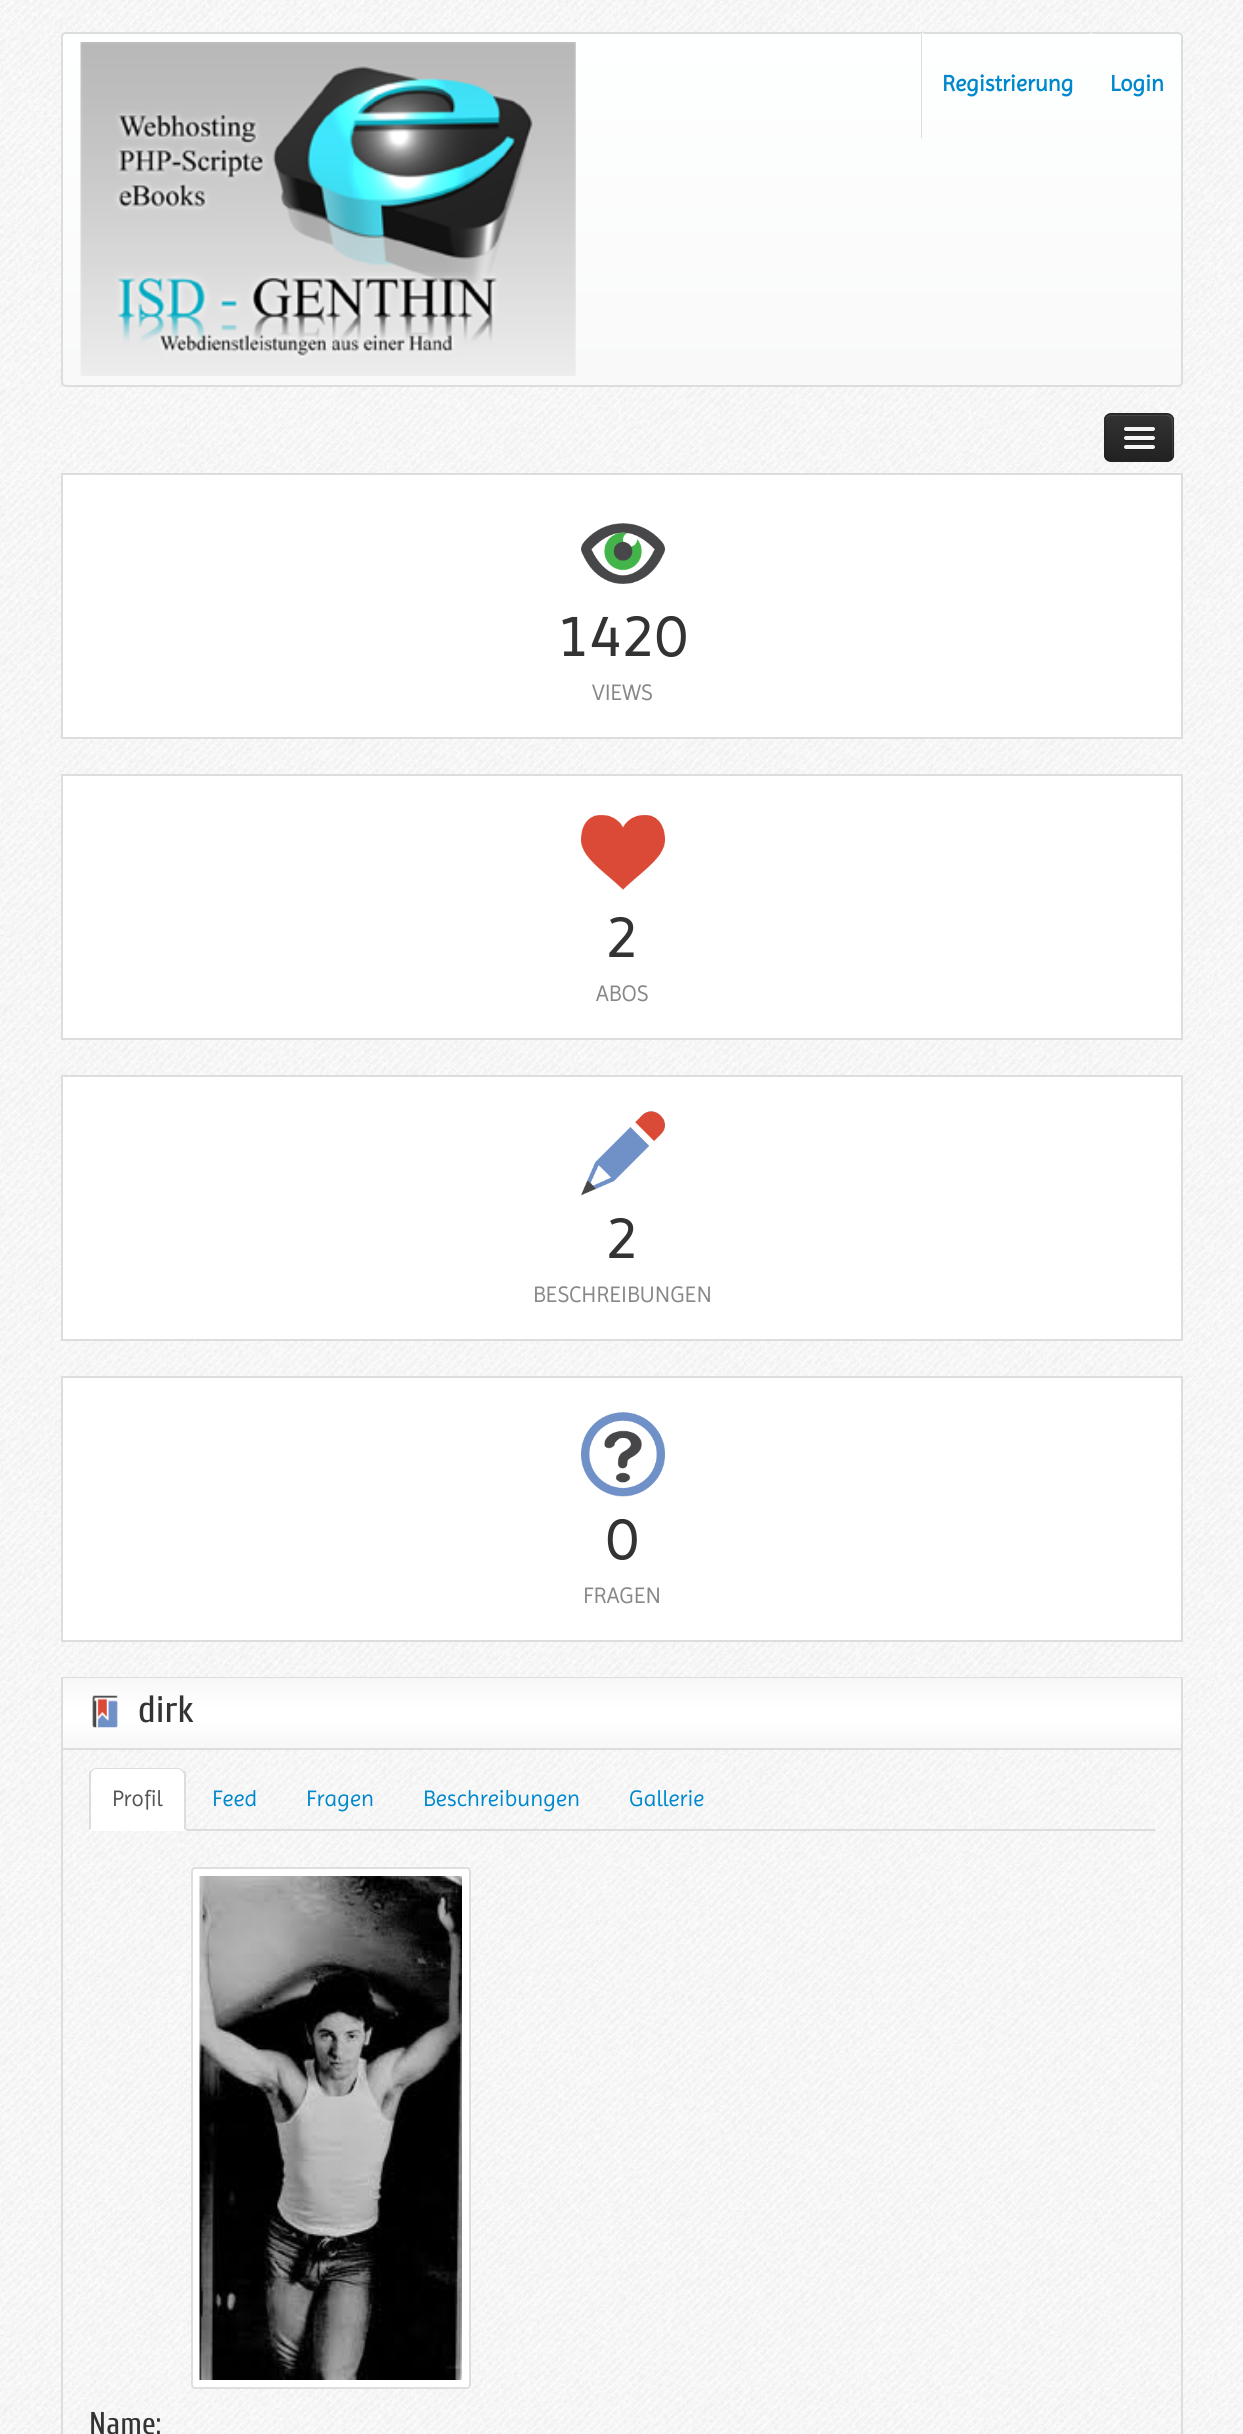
import math
import cairo

surface = cairo.ImageSurface(cairo.FORMAT_RGB24, 1243, 2434)
ctx = cairo.Context(surface)
options = cairo.FontOptions()
options.set_hint_metrics(cairo.HINT_METRICS_OFF)
options.set_hint_style(cairo.HINT_STYLE_NONE)
ctx.set_font_options(options)
ctx.set_miter_limit(4)


def set_color(code):
    ctx.set_source_rgb(*(v / 255 for v in bytes.fromhex(code[-6:])))


def draw_text(x, y, s, family, size, color, bold=False, italic=False):
    ctx.select_font_face(family, cairo.FONT_SLANT_ITALIC if italic else cairo.FONT_SLANT_NORMAL, cairo.FONT_WEIGHT_BOLD if bold else cairo.FONT_WEIGHT_NORMAL)
    ctx.set_font_size(size)
    set_color(color)
    ctx.move_to(x, y)
    ctx.show_text(s)


def fill_rect(x, y, w, h, color):
    set_color(color)
    ctx.rectangle(x, y, w, h)
    ctx.fill()


def rounded_rect(x, y, w, h, r):
    ctx.new_sub_path()
    for i, (u, v) in enumerate([(x + w - r, y + h - r), (x + r, y + h - r), (x + r, y + r), (x + w - r, y + r)]):
        ctx.arc(u, v, r, i * math.pi / 2, (i + 1) * math.pi / 2)
    ctx.close_path()


def draw_image(path, x, y, w, h):
    ctx.save()
    ctx.set_source_surface(cairo.ImageSurface.create_from_png(path), x, y)
    ctx.rectangle(x, y, w, h)
    ctx.fill()
    ctx.restore()


set_color("#ffffff")
ctx.paint()
draw_image("assets/img1.png", 0, 0, 1243, 2434)
gradient = cairo.LinearGradient(622, 33, 622, 385)
gradient.add_color_stop_rgba(0, 0.996, 1, 1, 1)
gradient.add_color_stop_rgba(1, 0.976, 0.976, 0.976, 1)
ctx.set_source(gradient)
rounded_rect(63, 33, 1118, 352, 4)
ctx.fill()
rounded_rect(62, 33, 1120, 353, 4)
set_color("#dddddd")
ctx.stroke()
draw_image("assets/img2.png", 80, 42, 496, 334)
fill_rect(921, 33, 1, 105, "#dddddd")
fill_rect(922, 33, 2, 1, "#ffffff")
draw_text(942, 91, "Registrierung", "Imprima", 22.75, "#0088cc", bold=True)
fill_rect(1090, 33, 2, 1, "#ffffff")
draw_text(1110, 91, "Login", "Imprima", 22.75, "#0088cc", bold=True)
set_color("#2c2c2c")
rounded_rect(1104, 413, 70, 49, 7)
ctx.fill()
ctx.save()
rounded_rect(1104, 413, 70, 49, 7)
ctx.clip()
gradient = cairo.LinearGradient(1139, 415, 1139, 460)
gradient.add_color_stop_rgba(0, 0.2, 0.2, 0.2, 1)
gradient.add_color_stop_rgba(1, 0.133, 0.133, 0.133, 1)
ctx.set_source(gradient)
ctx.rectangle(1104, 415, 70, 45)
ctx.fill()
ctx.restore()
ctx.set_source_rgba(1, 1, 1, 0.1)
ctx.new_path()
ctx.move_to(1111, 416)
ctx.line_to(1148, 416)
ctx.curve_to(1172, 416, 1172, 412, 1172, 434)
ctx.line_to(1172, 458)
ctx.curve_to(1174, 456, 1173, 452, 1173, 449)
ctx.line_to(1173, 438)
ctx.curve_to(1173, 411, 1177, 415, 1149, 415)
ctx.line_to(1120, 415)
ctx.curve_to(1113, 415, 1106, 413, 1106, 422)
ctx.curve_to(1106, 419, 1108, 416, 1111, 416)
ctx.close_path()
ctx.fill()
ctx.new_path()
ctx.move_to(1171.5, 459.5)
ctx.curve_to(1170.5, 460.5, 1169, 461, 1167, 461)
ctx.line_to(1111, 461)
ctx.curve_to(1109.5, 461, 1108, 460.5, 1107, 459.5)
ctx.set_source_rgba(0, 0, 0, 0.25)
ctx.set_line_width(1.8)
ctx.stroke()
ctx.new_path()
ctx.move_to(1107, 459.5)
ctx.curve_to(1106, 458, 1105, 456.5, 1105, 455)
ctx.line_to(1105, 420)
ctx.curve_to(1105, 418.5, 1106, 417, 1107, 415.5)
ctx.curve_to(1108, 414.5, 1109.5, 414, 1111, 414)
ctx.line_to(1167, 414)
ctx.curve_to(1169, 414, 1170.5, 414.5, 1171.5, 415.5)
ctx.curve_to(1172.5, 417, 1173.5, 418.5, 1173.5, 420)
ctx.line_to(1173.5, 455)
ctx.curve_to(1173.5, 456.5, 1172.5, 458, 1171.5, 459.5)
ctx.set_source_rgba(0, 0, 0, 0.1)
ctx.stroke()
set_color("#212121")
ctx.new_path()
ctx.move_to(1124, 430)
ctx.curve_to(1122.5, 434, 1129.5, 433, 1130.5, 433)
ctx.line_to(1148.5, 433)
ctx.curve_to(1149.5, 433, 1154.5, 434, 1155, 431.5)
ctx.line_to(1154.5, 430)
ctx.line_to(1153.5, 430.5)
ctx.curve_to(1151, 431, 1125, 431, 1124, 430)
ctx.close_path()
ctx.fill()
set_color("#f5f5f5")
rounded_rect(1124, 427, 31, 4, 2)
ctx.fill()
set_color("#1f1f1f")
ctx.new_path()
ctx.move_to(1124.5, 439)
ctx.curve_to(1122, 443, 1130, 442, 1130.5, 442)
ctx.line_to(1148.5, 442)
ctx.curve_to(1149.5, 442, 1154.5, 443, 1155, 440.5)
ctx.curve_to(1155, 440, 1155, 439, 1154.5, 438.5)
ctx.line_to(1153.5, 439)
ctx.curve_to(1151, 439.5, 1125, 439.5, 1124.5, 439)
ctx.close_path()
ctx.fill()
set_color("#f5f5f5")
rounded_rect(1124, 436, 31, 4, 2)
ctx.fill()
set_color("#1d1d1d")
ctx.new_path()
ctx.move_to(1124, 447.5)
ctx.curve_to(1123, 451, 1129.5, 450, 1130.5, 450)
ctx.line_to(1148.5, 450)
ctx.curve_to(1149.5, 450, 1156.5, 451, 1155, 447)
ctx.line_to(1153.5, 448)
ctx.line_to(1125, 448)
ctx.close_path()
ctx.fill()
set_color("#f5f5f5")
rounded_rect(1124, 445, 31, 4, 2)
ctx.fill()
set_color("#ffffff")
ctx.rectangle(62, 474, 1120, 264)
ctx.fill_preserve()
set_color("#dddddd")
ctx.set_line_width(2)
ctx.stroke()
draw_image("assets/img3.png", 581, 523, 84, 61)
draw_text(557, 656, "1420", "Imprima", 63, "#333333")
draw_text(592, 700, "VIEWS", "Imprima", 22.75, "#888888")
set_color("#ffffff")
ctx.rectangle(62, 775, 1120, 264)
ctx.fill_preserve()
set_color("#dddddd")
ctx.stroke()
draw_image("assets/img4.png", 581, 815, 84, 75)
draw_text(606, 957, "2", "Imprima", 63, "#333333")
draw_text(596, 1001, "ABOS", "Imprima", 22.75, "#888888")
set_color("#ffffff")
ctx.rectangle(62, 1076, 1120, 264)
ctx.fill_preserve()
set_color("#dddddd")
ctx.stroke()
draw_image("assets/img5.png", 581, 1111, 84, 85)
draw_text(606, 1258, "2", "Imprima", 63, "#333333")
draw_text(533, 1302, "BESCHREIBUNGEN", "Imprima", 22.75, "#888888")
set_color("#ffffff")
ctx.rectangle(62, 1377, 1120, 264)
ctx.fill_preserve()
set_color("#dddddd")
ctx.stroke()
draw_image("assets/img6.png", 581, 1412, 84, 85)
draw_text(606, 1559, "0", "Imprima", 63, "#333333")
draw_text(583, 1603, "FRAGEN", "Imprima", 22.75, "#888888")
ctx.rectangle(62, 1678, 1120, 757)
set_color("#dddddd")
ctx.stroke()
gradient = cairo.LinearGradient(622, 1678, 622, 1748)
gradient.add_color_stop_rgba(0, 0.969, 0.969, 0.969, 1)
gradient.add_color_stop_rgba(0.45, 1, 1, 1, 1)
gradient.add_color_stop_rgba(0.59, 1, 1, 1, 1)
gradient.add_color_stop_rgba(1, 0.969, 0.969, 0.969, 1)
ctx.set_source(gradient)
ctx.rectangle(63, 1678, 1118, 70)
ctx.fill()
fill_rect(63, 1748, 1118, 2, "#dddddd")
draw_image("assets/img7.png", 92, 1695, 26, 33)
draw_text(138, 1722, "dirk", "Cuprum", 38, "#333333")
fill_rect(186, 1829, 969, 2, "#dddddd")
set_color("#ffffff")
ctx.new_path()
ctx.move_to(96, 1768)
ctx.line_to(179, 1768)
ctx.curve_to(183, 1768, 186, 1771, 186, 1775)
ctx.line_to(186, 1831)
ctx.line_to(89, 1831)
ctx.line_to(89, 1775)
ctx.curve_to(89, 1771, 92, 1768, 96, 1768)
ctx.close_path()
ctx.fill()
set_color("#dddddd")
ctx.new_path()
ctx.move_to(96, 1768)
ctx.curve_to(94, 1768, 93, 1769, 91, 1770)
ctx.line_to(92, 1771)
ctx.line_to(95, 1769)
ctx.line_to(179, 1769)
ctx.line_to(182, 1771)
ctx.line_to(183, 1770)
ctx.curve_to(182, 1769, 180, 1768, 178, 1768)
ctx.close_path()
ctx.fill()
ctx.new_path()
ctx.move_to(183, 1770)
ctx.line_to(186, 1772)
ctx.line_to(186, 1830)
ctx.line_to(184, 1829)
ctx.line_to(184, 1774)
ctx.line_to(182, 1771)
ctx.close_path()
ctx.fill()
ctx.new_path()
ctx.move_to(89, 1772)
ctx.line_to(91, 1770)
ctx.line_to(92, 1771)
ctx.curve_to(92, 1772, 91, 1773, 91, 1774)
ctx.line_to(91, 1829)
ctx.line_to(89, 1830)
ctx.close_path()
ctx.fill()
draw_text(112, 1806, "Profil", "Imprima", 22.75, "#555555")
draw_text(212, 1806, "Feed", "Imprima", 22.75, "#0088cc")
draw_text(306, 1806, "Fragen", "Imprima", 22.75, "#0088cc")
draw_text(423, 1806, "Beschreibungen", "Imprima", 22.75, "#0088cc")
draw_text(629, 1806, "Gallerie", "Imprima", 22.75, "#0088cc")
set_color("#ffffff")
rounded_rect(192, 1868, 278, 520, 3)
ctx.fill_preserve()
set_color("#dedede")
ctx.stroke()
draw_image("assets/img8.png", 199, 1876, 263, 504)
draw_text(89, 2434, "Name:", "Cuprum", 31.5, "#333333")
surface.write_to_png("output.png")
